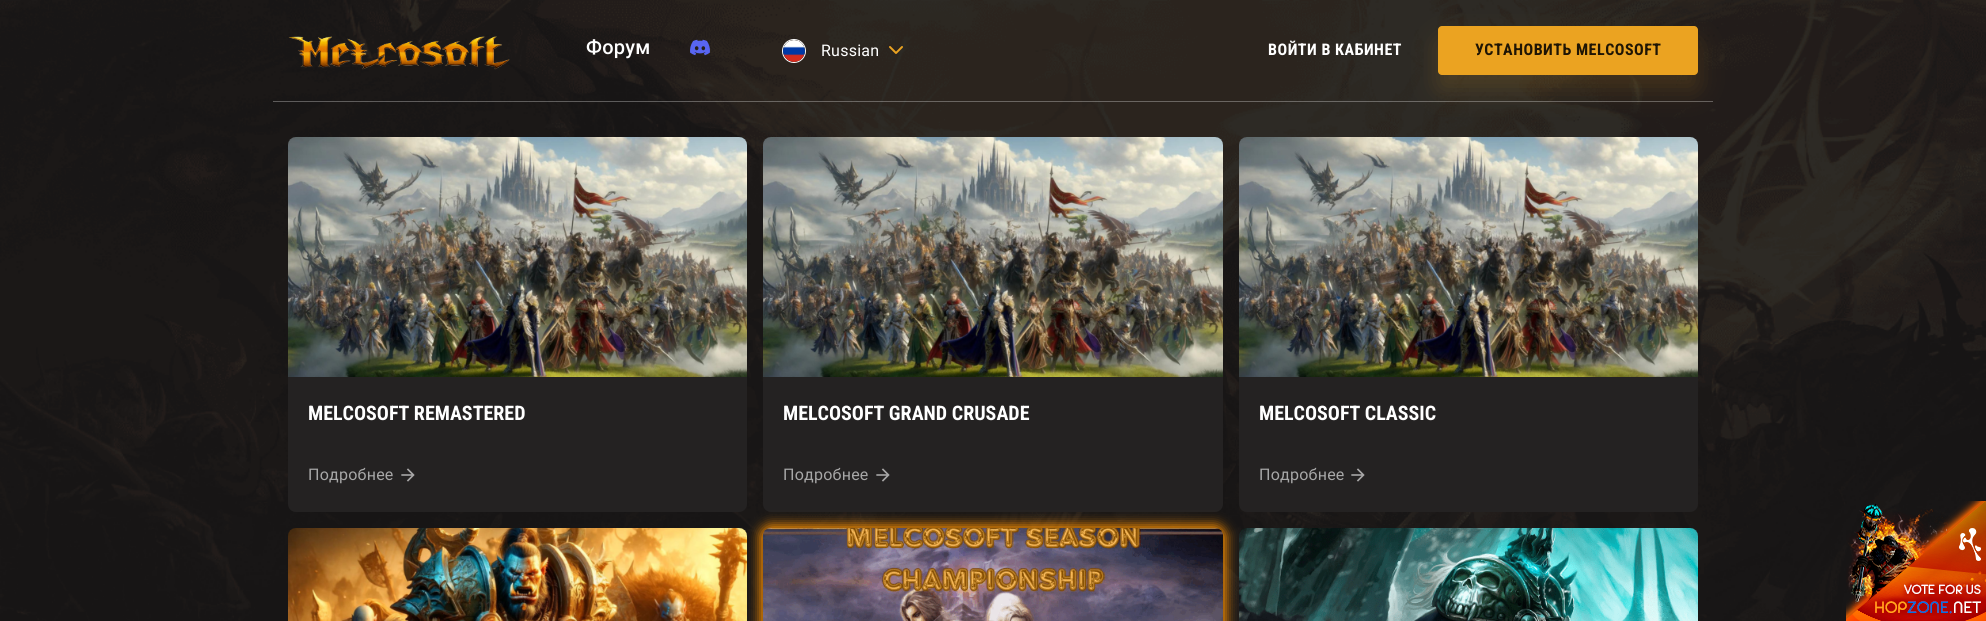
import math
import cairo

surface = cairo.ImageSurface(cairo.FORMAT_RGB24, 1986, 621)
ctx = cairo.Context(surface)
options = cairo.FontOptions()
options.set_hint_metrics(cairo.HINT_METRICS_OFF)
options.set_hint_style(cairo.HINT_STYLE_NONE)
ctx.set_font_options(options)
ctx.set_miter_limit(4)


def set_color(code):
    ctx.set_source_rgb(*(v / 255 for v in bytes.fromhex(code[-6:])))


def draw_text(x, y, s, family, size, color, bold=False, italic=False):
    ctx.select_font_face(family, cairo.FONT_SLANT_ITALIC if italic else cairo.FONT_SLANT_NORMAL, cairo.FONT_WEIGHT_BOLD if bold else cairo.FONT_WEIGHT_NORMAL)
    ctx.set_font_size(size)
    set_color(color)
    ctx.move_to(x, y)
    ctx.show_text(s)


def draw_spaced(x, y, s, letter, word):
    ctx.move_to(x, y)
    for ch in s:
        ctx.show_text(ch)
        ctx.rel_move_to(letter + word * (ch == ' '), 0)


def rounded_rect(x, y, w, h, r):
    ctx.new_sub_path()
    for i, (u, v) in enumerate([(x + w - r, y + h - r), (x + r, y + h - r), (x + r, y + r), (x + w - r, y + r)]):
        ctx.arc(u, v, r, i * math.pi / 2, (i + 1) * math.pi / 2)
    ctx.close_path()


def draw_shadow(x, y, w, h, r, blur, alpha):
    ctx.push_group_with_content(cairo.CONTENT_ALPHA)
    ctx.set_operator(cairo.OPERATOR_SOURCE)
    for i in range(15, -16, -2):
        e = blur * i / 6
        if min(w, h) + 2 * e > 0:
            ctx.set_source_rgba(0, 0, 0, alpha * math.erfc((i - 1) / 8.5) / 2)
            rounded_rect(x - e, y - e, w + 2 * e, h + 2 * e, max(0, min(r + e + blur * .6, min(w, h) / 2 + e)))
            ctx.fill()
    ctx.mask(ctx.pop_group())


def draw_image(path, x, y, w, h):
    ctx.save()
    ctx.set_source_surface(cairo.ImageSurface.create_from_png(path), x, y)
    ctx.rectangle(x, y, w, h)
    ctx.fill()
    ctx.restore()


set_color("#ffffff")
ctx.paint()
draw_image("assets/img1.png", 0, 0, 1986, 621)
ctx.set_source_rgba(1, 1, 1, 0.3)
ctx.rectangle(273, 101, 1440, 1)
ctx.fill()
draw_image("assets/img2.png", 288, 36, 222, 34)
ctx.select_font_face("Roboto Medium")
ctx.set_font_size(20)
set_color("#ffffff")
draw_spaced(586, 54, "Форум", 0.25, 0)
draw_image("assets/img3.png", 690, 39, 20, 17)
ctx.arc(794, 51, 11.5, 0, 2 * math.pi)
ctx.set_line_width(1)
ctx.stroke()
draw_image("assets/img4.png", 783, 40, 22, 22)
ctx.select_font_face("Roboto")
ctx.set_font_size(16)
draw_spaced(821, 56, "Russian", 0.25, 0)
draw_image("assets/img5.png", 889, 46, 14, 8)
ctx.select_font_face("Roboto Condensed", cairo.FONT_SLANT_NORMAL, cairo.FONT_WEIGHT_BOLD)
draw_spaced(1268, 55, "ВОЙТИ В КАБИНЕТ", 0.5, 0)
set_color("#eba321")
draw_shadow(1438, 41, 260, 49, 4, 12.5, 0.17)
set_color("#eba321")
rounded_rect(1438, 26, 260, 49, 4)
ctx.fill()
set_color("#1f1504")
draw_spaced(1475, 55, "УСТАНОВИТЬ MELCOSOFT", 0.5, 0)
set_color("#242222")
rounded_rect(288, 137, 459, 375, 8)
ctx.fill()
draw_image("assets/img6.png", 288, 137, 459, 240)
draw_text(308, 420, "MELCOSOFT REMASTERED", "Roboto Condensed", 20, "#ffffff", bold=True)
ctx.select_font_face("Roboto")
ctx.set_font_size(16)
set_color("#a7a7a7")
draw_spaced(308, 480, "Подробнее", 0.25, 0)
draw_image("assets/img7.png", 401, 468, 14, 14)
set_color("#242222")
rounded_rect(763, 137, 460, 375, 8)
ctx.fill()
draw_image("assets/img8.png", 763, 137, 460, 240)
draw_text(783, 420, "MELCOSOFT GRAND CRUSADE", "Roboto Condensed", 20, "#ffffff", bold=True)
ctx.select_font_face("Roboto")
ctx.set_font_size(16)
set_color("#a7a7a7")
draw_spaced(783, 480, "Подробнее", 0.25, 0)
draw_image("assets/img7.png", 876, 468, 14, 14)
set_color("#242222")
rounded_rect(1239, 137, 459, 375, 8)
ctx.fill()
draw_image("assets/img9.png", 1239, 137, 459, 240)
draw_text(1259, 420, "MELCOSOFT CLASSIC", "Roboto Condensed", 20, "#ffffff", bold=True)
ctx.select_font_face("Roboto")
ctx.set_font_size(16)
set_color("#a7a7a7")
draw_spaced(1259, 480, "Подробнее", 0.25, 0)
draw_image("assets/img7.png", 1351, 468, 14, 14)
set_color("#ff9100")
draw_shadow(760, 525, 466, 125, 11, 6, 1)
draw_image("assets/img10.png", 288, 528, 459, 93)
draw_image("assets/img11.png", 763, 528, 460, 8)
draw_image("assets/img12.png", 763, 528, 460, 93)
draw_image("assets/img13.png", 1239, 528, 459, 93)
draw_image("assets/img14.png", 1846, 501, 140, 120)
surface.write_to_png("output.png")
